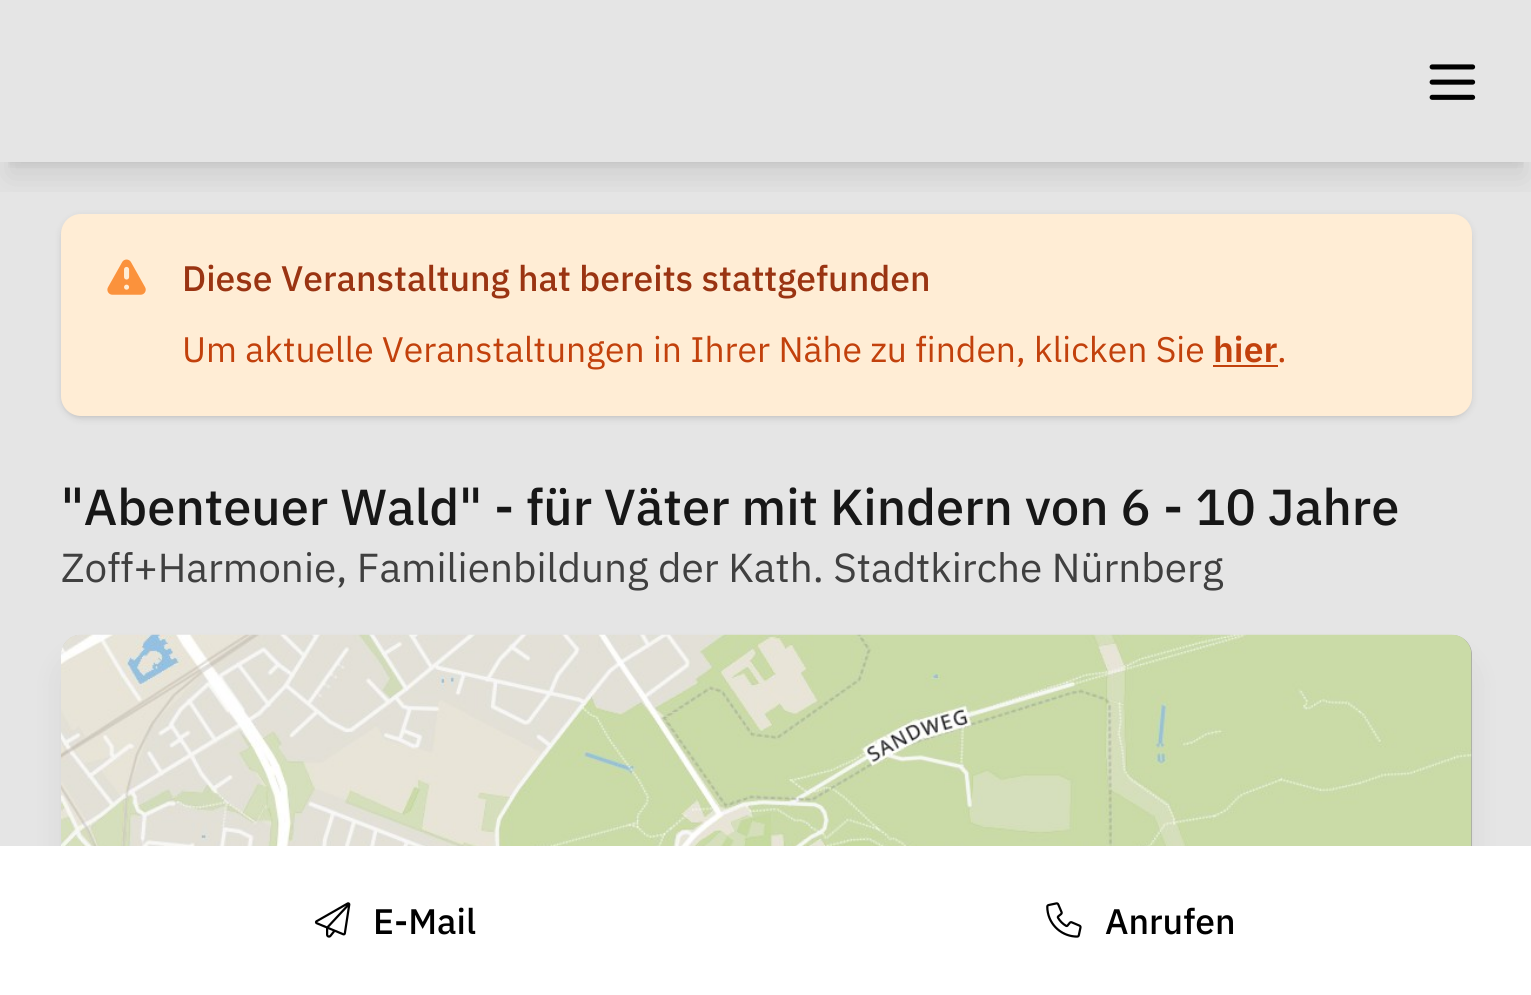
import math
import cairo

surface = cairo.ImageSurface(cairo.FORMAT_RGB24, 1531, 995)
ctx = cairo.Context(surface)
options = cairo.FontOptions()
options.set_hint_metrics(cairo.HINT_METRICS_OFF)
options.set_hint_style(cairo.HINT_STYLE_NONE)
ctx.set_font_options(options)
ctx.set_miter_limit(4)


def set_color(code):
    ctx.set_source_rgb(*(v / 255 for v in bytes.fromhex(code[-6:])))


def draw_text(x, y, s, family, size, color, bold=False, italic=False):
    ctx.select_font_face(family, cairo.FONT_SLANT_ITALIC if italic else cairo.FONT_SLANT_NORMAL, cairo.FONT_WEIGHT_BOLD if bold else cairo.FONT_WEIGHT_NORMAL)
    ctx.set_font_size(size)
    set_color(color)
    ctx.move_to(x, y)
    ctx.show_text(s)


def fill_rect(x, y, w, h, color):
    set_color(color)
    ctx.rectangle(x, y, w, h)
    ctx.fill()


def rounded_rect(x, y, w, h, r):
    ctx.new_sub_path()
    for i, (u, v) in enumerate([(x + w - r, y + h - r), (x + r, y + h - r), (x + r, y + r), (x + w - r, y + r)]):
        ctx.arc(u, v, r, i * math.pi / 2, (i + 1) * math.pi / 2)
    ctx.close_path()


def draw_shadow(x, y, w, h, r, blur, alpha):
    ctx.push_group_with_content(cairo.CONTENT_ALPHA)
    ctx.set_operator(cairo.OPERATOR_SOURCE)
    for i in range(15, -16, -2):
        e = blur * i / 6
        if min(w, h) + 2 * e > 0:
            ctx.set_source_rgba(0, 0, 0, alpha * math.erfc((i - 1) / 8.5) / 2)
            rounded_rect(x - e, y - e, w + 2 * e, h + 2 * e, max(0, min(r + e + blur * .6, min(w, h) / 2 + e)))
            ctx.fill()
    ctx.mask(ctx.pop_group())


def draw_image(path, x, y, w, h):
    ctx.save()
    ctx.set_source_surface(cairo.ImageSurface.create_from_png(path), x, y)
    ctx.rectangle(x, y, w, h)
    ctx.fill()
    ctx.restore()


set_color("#e5e5e5")
ctx.paint()
ctx.save()
ctx.rectangle(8, 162, 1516, 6)
ctx.clip()
set_color("#000000")
draw_shadow(9, 18, 1514, 144, 0, 7, 0.1)
ctx.restore()
set_color("#000000")
draw_shadow(63, 218, 1406, 198, 18, 2, 0.1)
draw_shadow(61, 216, 1411, 203, 20, 3.5, 0.1)
set_color("#ffedd5")
rounded_rect(61, 214, 1411, 202, 20)
ctx.fill()
ctx.save()
ctx.rectangle(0, 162, 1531, 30)
ctx.clip()
set_color("#000000")
draw_shadow(7, 29, 1519, 149, 0, 17, 0.1)
ctx.restore()
draw_image("assets/img1.png", 1429, 64, 47, 36)
draw_image("assets/img2.png", 107, 259, 39, 36)
draw_text(182, 291, "Diese Veranstaltung hat bereits stattgefunden", "IBM Plex Sans Medium", 35.45, "#9a3412")
draw_text(182, 362, "Um aktuelle Veranstaltungen in Ihrer Nähe zu finden, klicken Sie", "IBM Plex Sans", 35.45, "#c2410c")
draw_text(1213, 362, "hier", "IBM Plex Sans SemiBold", 35.45, "#c2410c")
fill_rect(1213, 365, 65, 2, "#c2410c")
draw_text(1277, 362, ".", "IBM Plex Sans", 35.45, "#c2410c")
draw_text(61, 525, "\"Abenteuer Wald\" - für Väter mit Kindern von 6 - 10 Jahre", "IBM Plex Sans Medium", 50.6, "#171717")
draw_text(61, 582, "Zoff+Harmonie, Familienbildung der Kath. Stadtkirche Nürnberg", "IBM Plex Sans", 40.5, "#404040")
set_color("#000000")
draw_shadow(68, 664, 1397, 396, 14, 17, 0.1)
set_color("#a3a3a3")
rounded_rect(61, 635, 1411, 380, 20)
ctx.fill()
draw_image("assets/img3.png", 61, 634, 1411, 212)
fill_rect(0, 846, 1531, 149, "#ffffff")
draw_image("assets/img4.png", 314, 902, 37, 36)
draw_text(373, 934, "E-Mail", "IBM Plex Sans Medium", 35.45, "#000000")
draw_image("assets/img5.png", 1046, 902, 36, 36)
draw_text(1105, 934, "Anrufen", "IBM Plex Sans Medium", 35.45, "#000000")
surface.write_to_png("output.png")
